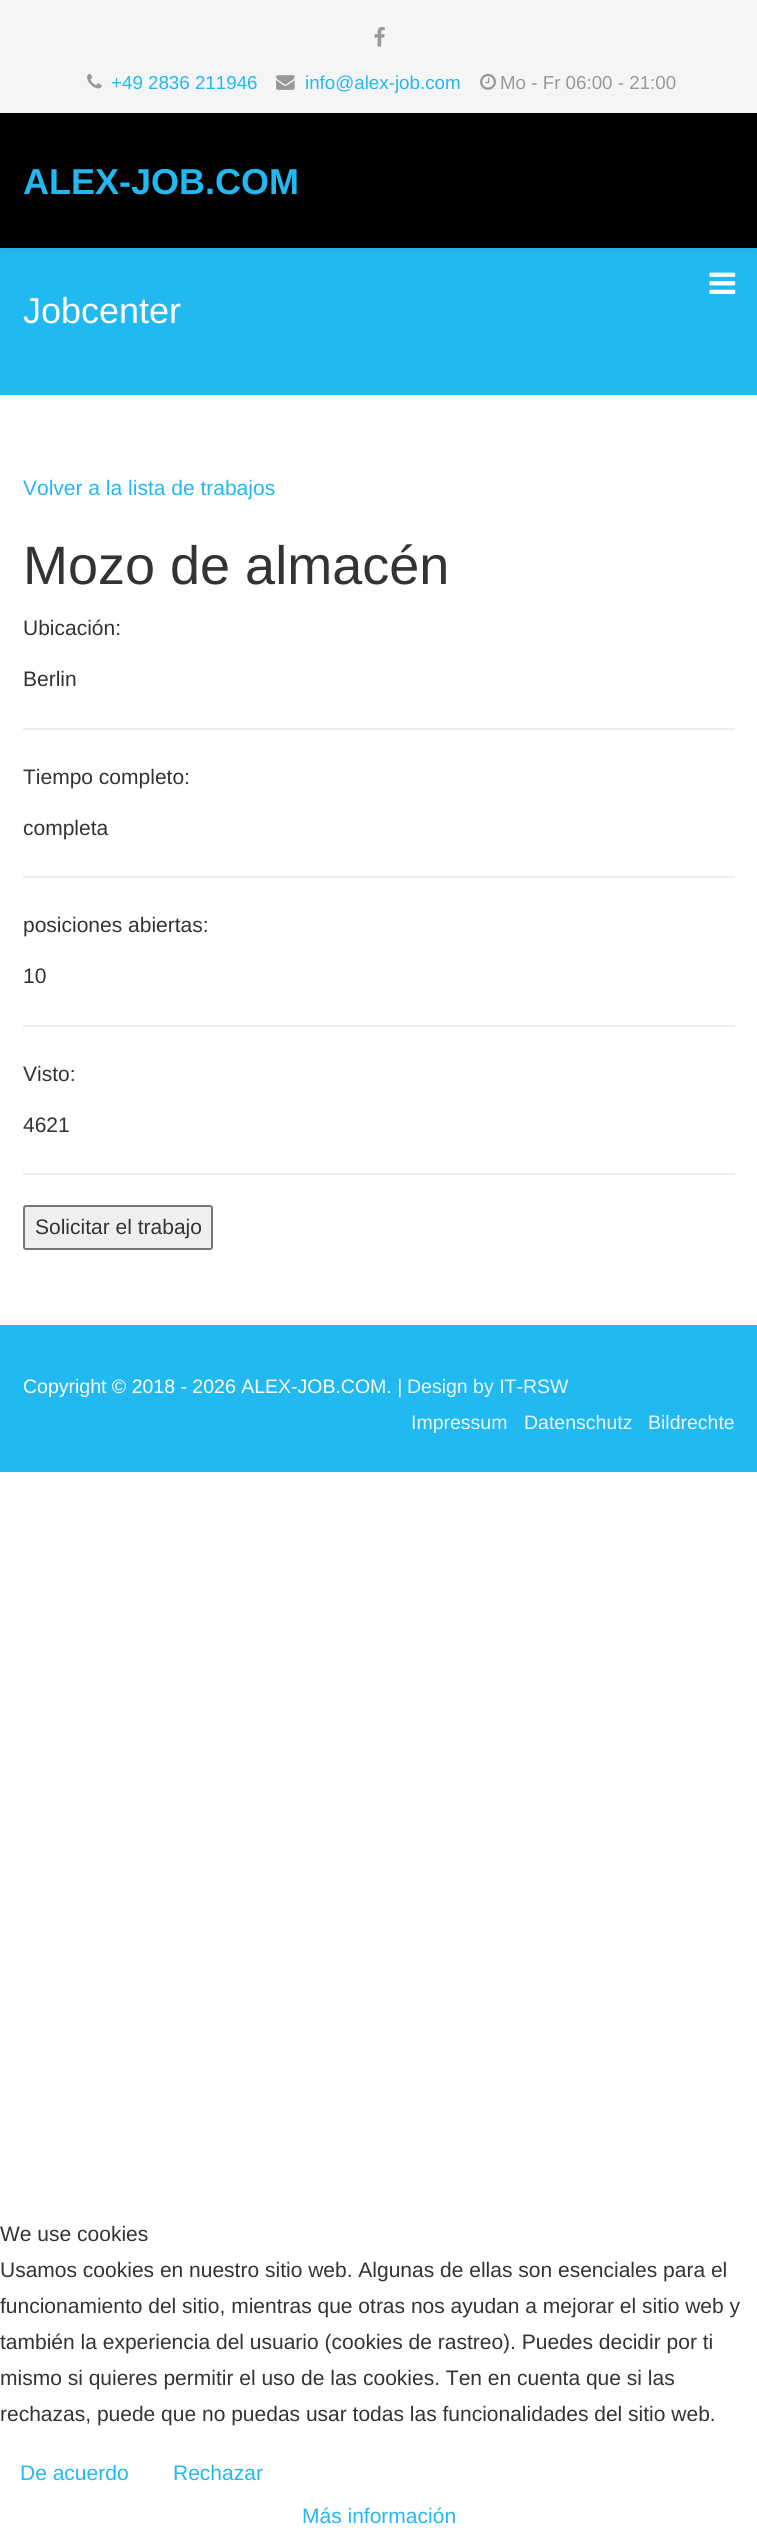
import math
import cairo

surface = cairo.ImageSurface(cairo.FORMAT_RGB24, 757, 2533)
ctx = cairo.Context(surface)
options = cairo.FontOptions()
options.set_hint_metrics(cairo.HINT_METRICS_OFF)
options.set_hint_style(cairo.HINT_STYLE_NONE)
ctx.set_font_options(options)
ctx.set_miter_limit(4)


def set_color(code):
    ctx.set_source_rgb(*(v / 255 for v in bytes.fromhex(code[-6:])))


def draw_text(x, y, s, family, size, color, bold=False, italic=False):
    ctx.select_font_face(family, cairo.FONT_SLANT_ITALIC if italic else cairo.FONT_SLANT_NORMAL, cairo.FONT_WEIGHT_BOLD if bold else cairo.FONT_WEIGHT_NORMAL)
    ctx.set_font_size(size)
    set_color(color)
    ctx.move_to(x, y)
    ctx.show_text(s)


def fill_rect(x, y, w, h, color):
    set_color(color)
    ctx.rectangle(x, y, w, h)
    ctx.fill()


def rounded_rect(x, y, w, h, r):
    ctx.new_sub_path()
    for i, (u, v) in enumerate([(x + w - r, y + h - r), (x + r, y + h - r), (x + r, y + r), (x + w - r, y + r)]):
        ctx.arc(u, v, r, i * math.pi / 2, (i + 1) * math.pi / 2)
    ctx.close_path()


def draw_shadow(x, y, w, h, r, blur, alpha):
    ctx.push_group_with_content(cairo.CONTENT_ALPHA)
    ctx.set_operator(cairo.OPERATOR_SOURCE)
    for i in range(15, -16, -2):
        e = blur * i / 6
        if min(w, h) + 2 * e > 0:
            ctx.set_source_rgba(0, 0, 0, alpha * math.erfc((i - 1) / 8.5) / 2)
            rounded_rect(x - e, y - e, w + 2 * e, h + 2 * e, max(0, min(r + e + blur * .6, min(w, h) / 2 + e)))
            ctx.fill()
    ctx.mask(ctx.pop_group())


def draw_image(path, x, y, w, h):
    ctx.save()
    ctx.set_source_surface(cairo.ImageSurface.create_from_png(path), x, y)
    ctx.rectangle(x, y, w, h)
    ctx.fill()
    ctx.restore()


set_color("#ffffff")
ctx.paint()
fill_rect(0, 0, 757, 113, "#f5f5f5")
draw_image("assets/img1.png", 374, 27, 11, 20)
draw_image("assets/img2.png", 87, 73, 15, 16)
draw_text(111, 89, "+49 2836 211946", "Liberation Sans", 18.75, "#22b8f0")
draw_image("assets/img3.png", 276, 75, 19, 15)
draw_text(305, 89, "info@alex-job.com", "Liberation Sans", 18.75, "#22b8f0")
draw_image("assets/img4.png", 480, 73, 16, 17)
draw_text(500, 89, "Mo - Fr 06:00 - 21:00", "Liberation Sans", 18.75, "#999999")
fill_rect(0, 248, 757, 147, "#22b8f0")
set_color("#000000")
draw_shadow(0, 117, 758, 135, 0, 2, 0.05)
fill_rect(0, 113, 757, 135, "#000000")
draw_text(23, 194, "ALEX-JOB.COM", "Liberation Sans", 36, "#22b8f0", bold=True)
draw_image("assets/img5.png", 709, 272, 27, 22)
draw_text(23, 323, "Jobcenter", "Liberation Sans", 36, "#ffffff")
draw_text(23, 495, "Volver a la lista de trabajos", "Liberation Sans", 21, "#22b8f0")
draw_text(23, 584, "Mozo de almacén", "Liberation Sans", 54, "#333333")
draw_text(23, 635, "Ubicación:", "Liberation Sans", 21, "#333333")
draw_text(23, 686, "Berlin", "Liberation Sans", 21, "#333333")
fill_rect(23, 728, 712, 2, "#eeeeee")
draw_text(23, 784, "Tiempo completo:", "Liberation Sans", 21, "#333333")
draw_text(23, 835, "completa", "Liberation Sans", 21, "#333333")
fill_rect(23, 876, 712, 2, "#eeeeee")
draw_text(23, 932, "posiciones abiertas:", "Liberation Sans", 21, "#333333")
draw_text(23, 983, "10", "Liberation Sans", 21, "#333333")
fill_rect(23, 1025, 712, 2, "#eeeeee")
draw_text(23, 1081, "Visto:", "Liberation Sans", 21, "#333333")
draw_text(23, 1132, "4621", "Liberation Sans", 21, "#333333")
fill_rect(23, 1173, 712, 2, "#eeeeee")
set_color("#efefef")
rounded_rect(24, 1206, 188, 43, 2)
ctx.fill_preserve()
set_color("#767676")
ctx.stroke()
draw_text(35, 1234, "Solicitar el trabajo", "Liberation Sans", 21, "#333333")
fill_rect(0, 1325, 757, 147, "#22b8f0")
draw_text(23, 1393, "Copyright © 2018 - 2026 ALEX-JOB.COM. |", "Liberation Sans", 19.5, "#ffffff")
draw_text(407, 1393, "Design by IT-RSW", "Liberation Sans", 19.5, "#e9f8fe")
draw_text(411, 1429, "Impressum", "Liberation Sans", 19.5, "#e9f8fe")
draw_text(524, 1429, "Datenschutz", "Liberation Sans", 19.5, "#e9f8fe")
draw_text(648, 1429, "Bildrechte", "Liberation Sans", 19.5, "#e9f8fe")
draw_text(0, 2241, "We use cookies", "Liberation Sans", 21, "#333333")
draw_text(0, 2277, "Usamos cookies en nuestro sitio web. Algunas de ellas son esenciales para el", "Liberation Sans", 21, "#333333")
draw_text(0, 2313, "funcionamiento del sitio, mientras que otras nos ayudan a mejorar el sitio web y", "Liberation Sans", 21, "#333333")
draw_text(0, 2349, "también la experiencia del usuario (cookies de rastreo). Puedes decidir por ti", "Liberation Sans", 21, "#333333")
draw_text(0, 2385, "mismo si quieres permitir el uso de las cookies. Ten en cuenta que si las", "Liberation Sans", 21, "#333333")
draw_text(0, 2421, "rechazas, puede que no puedas usar todas las funcionalidades del sitio web.", "Liberation Sans", 21, "#333333")
draw_text(20, 2480, "De acuerdo", "Liberation Sans", 21, "#22b8f0")
draw_text(173, 2480, "Rechazar", "Liberation Sans", 21, "#22b8f0")
draw_text(302, 2523, "Más información", "Liberation Sans", 21, "#22b8f0")
surface.write_to_png("output.png")
